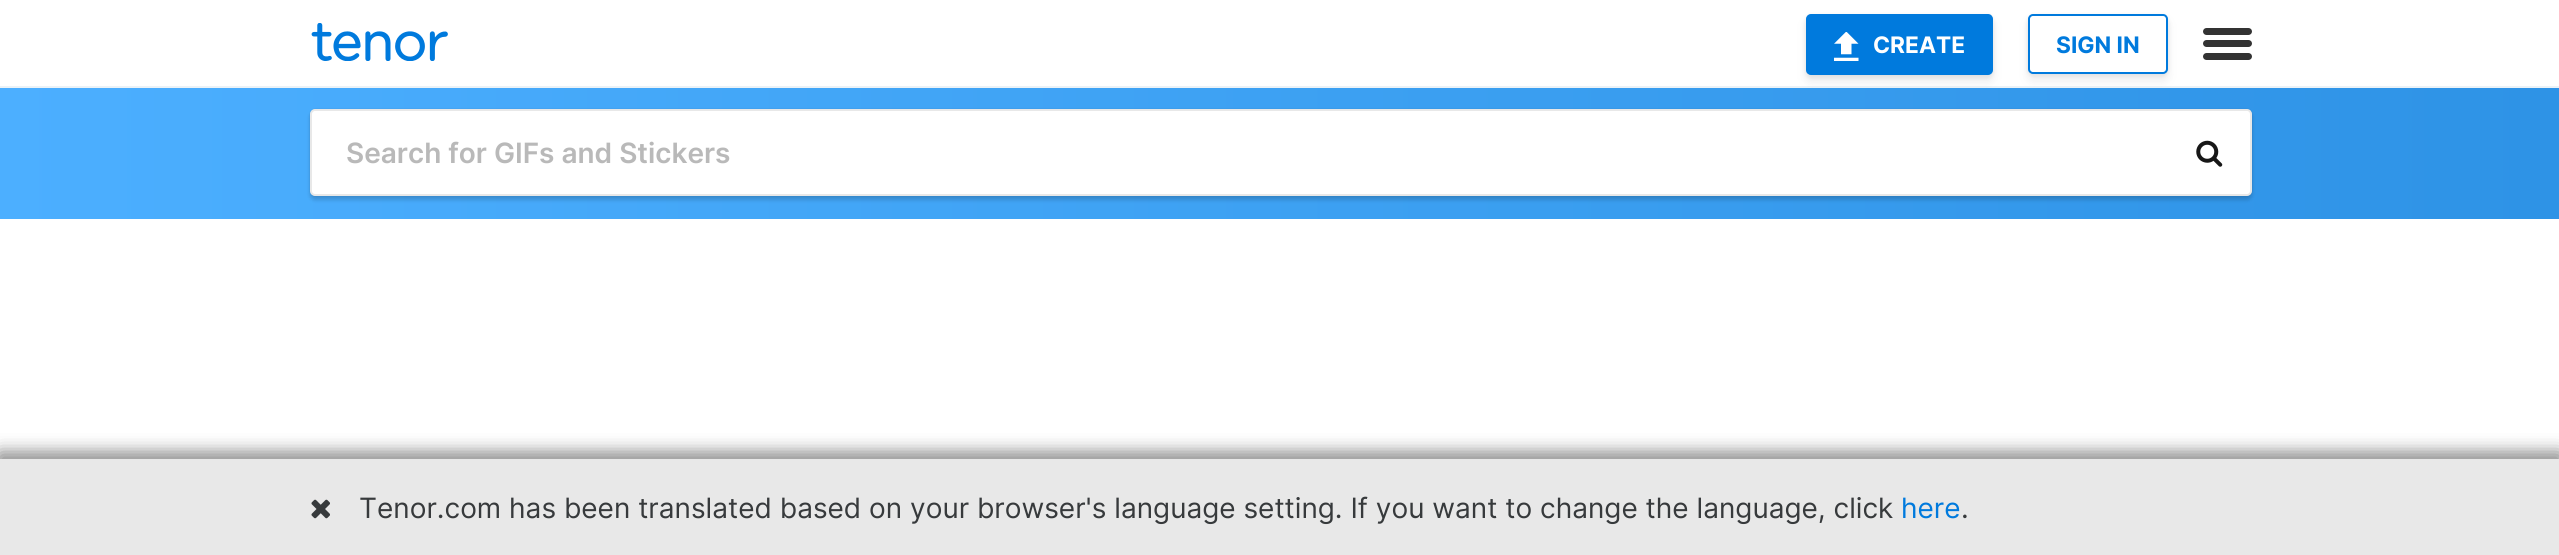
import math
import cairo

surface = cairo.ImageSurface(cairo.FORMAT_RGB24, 2559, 555)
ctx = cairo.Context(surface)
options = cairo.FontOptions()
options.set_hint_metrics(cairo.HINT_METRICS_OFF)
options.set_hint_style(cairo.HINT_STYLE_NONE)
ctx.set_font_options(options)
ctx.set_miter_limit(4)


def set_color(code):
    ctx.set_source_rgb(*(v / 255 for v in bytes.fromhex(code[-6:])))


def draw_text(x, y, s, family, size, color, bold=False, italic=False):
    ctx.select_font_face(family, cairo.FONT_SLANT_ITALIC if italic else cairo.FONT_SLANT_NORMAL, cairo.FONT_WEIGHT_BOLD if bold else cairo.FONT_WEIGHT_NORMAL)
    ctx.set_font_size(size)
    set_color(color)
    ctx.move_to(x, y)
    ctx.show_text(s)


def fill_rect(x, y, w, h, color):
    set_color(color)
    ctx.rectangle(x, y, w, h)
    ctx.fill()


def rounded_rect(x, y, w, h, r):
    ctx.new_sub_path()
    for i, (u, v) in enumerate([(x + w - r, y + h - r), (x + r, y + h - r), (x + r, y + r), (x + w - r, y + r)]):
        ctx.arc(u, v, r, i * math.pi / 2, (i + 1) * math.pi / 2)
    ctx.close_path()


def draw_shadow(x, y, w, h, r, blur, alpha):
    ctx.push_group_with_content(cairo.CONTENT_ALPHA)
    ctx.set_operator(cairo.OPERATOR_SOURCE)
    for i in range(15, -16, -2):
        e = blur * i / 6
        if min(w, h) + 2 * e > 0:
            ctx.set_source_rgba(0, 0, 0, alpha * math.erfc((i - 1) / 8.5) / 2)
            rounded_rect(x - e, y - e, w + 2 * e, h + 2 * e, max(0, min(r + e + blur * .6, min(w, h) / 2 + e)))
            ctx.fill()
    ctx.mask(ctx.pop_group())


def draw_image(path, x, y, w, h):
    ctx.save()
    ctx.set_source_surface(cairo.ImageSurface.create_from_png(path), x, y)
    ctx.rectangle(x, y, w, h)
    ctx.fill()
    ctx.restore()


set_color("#ffffff")
ctx.paint()
fill_rect(0, 86, 2559, 2, "#ebf2f7")
draw_image("assets/img1.png", 311, 23, 137, 38)
set_color("#53535c")
draw_shadow(1806, 21, 187, 61, 5, 5, 0.11)
set_color("#000000")
draw_shadow(1806, 16, 187, 61, 5, 2.5, 0.08)
set_color("#007add")
rounded_rect(1807, 15, 185, 59, 4)
ctx.fill_preserve()
ctx.stroke()
draw_image("assets/img2.png", 1834, 32, 25, 29)
draw_text(1873, 53, "CREATE", "Inter", 22.75, "#ffffff", bold=True)
set_color("#53535c")
draw_shadow(2028, 21, 140, 60, 5, 5, 0.11)
set_color("#000000")
draw_shadow(2028, 16, 140, 59, 5, 2.5, 0.08)
set_color("#ffffff")
rounded_rect(2029, 15, 138, 58, 4)
ctx.fill_preserve()
set_color("#007add")
ctx.stroke()
draw_text(2056, 53, "SIGN IN", "Inter", 22.75, "#007add", bold=True)
set_color("#333333")
rounded_rect(2203, 40, 49, 7, 3.5)
ctx.fill()
rounded_rect(2203, 28, 49, 7, 3.5)
ctx.fill()
rounded_rect(2203, 53, 49, 7, 3.5)
ctx.fill()
gradient = cairo.LinearGradient(0, 153, 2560, 153)
gradient.add_color_stop_rgba(0, 0.298, 0.686, 1, 1)
gradient.add_color_stop_rgba(1, 0.18, 0.576, 0.902, 1)
ctx.set_source(gradient)
ctx.rectangle(0, 88, 2559, 131)
ctx.fill()
set_color("#000000")
draw_shadow(310, 109, 1942, 87, 5, 1, 0.08)
draw_shadow(310, 112, 1942, 88, 5, 2, 0.16)
set_color("#ffffff")
rounded_rect(311, 110, 1940, 85, 4)
ctx.fill_preserve()
set_color("#e8e8e8")
ctx.stroke()
draw_text(346, 163, "Search for GIFs and Stickers", "Inter SemiBold", 28, "#b9b9b9")
draw_image("assets/img3.png", 2196, 140, 27, 27)
set_color("#999999")
draw_shadow(0, 455, 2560, 98, 0, 9, 1)
draw_shadow(0, 455, 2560, 98, 0, 9, 1)
fill_rect(0, 459, 2559, 96, "#e8e8e8")
draw_image("assets/img4.png", 311, 499, 19, 20)
draw_text(359, 518, "Tenor.com has been translated based on your browser's language setting. If you want to change the language, click", "Inter", 28, "#373a3c")
draw_text(1901, 518, "here", "Inter", 28, "#007add")
draw_text(1961, 518, ".", "Inter", 28, "#373a3c")
surface.write_to_png("output.png")
